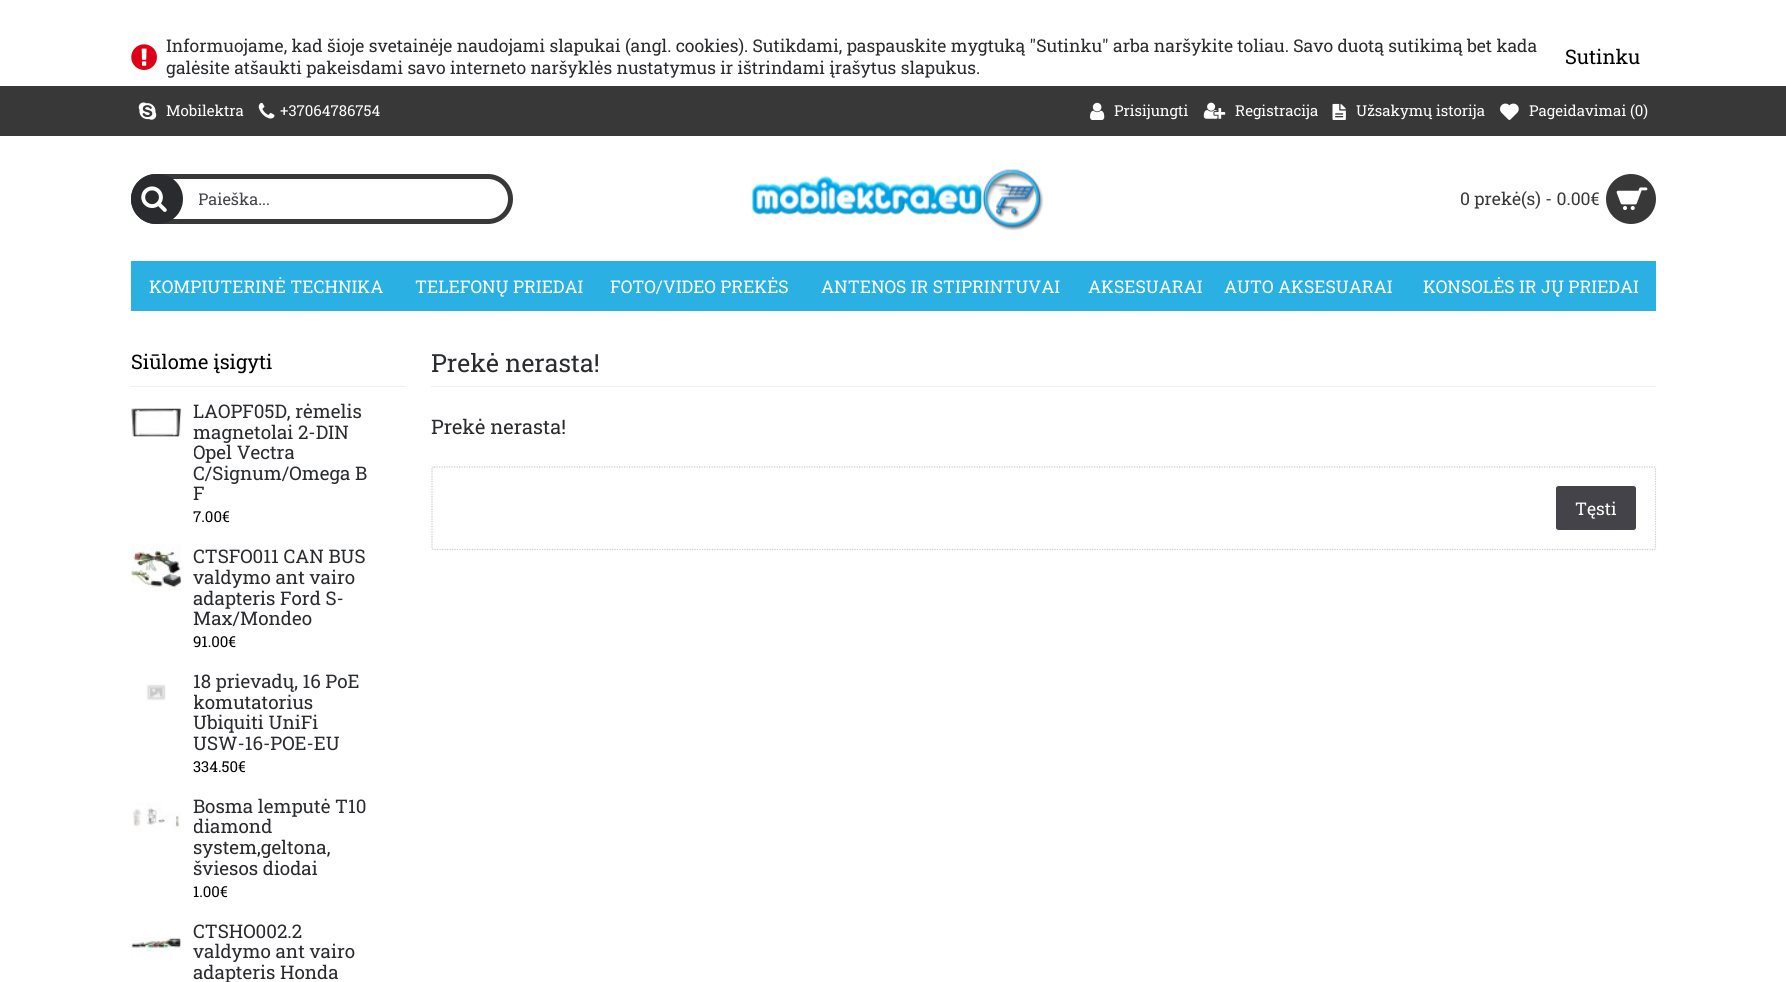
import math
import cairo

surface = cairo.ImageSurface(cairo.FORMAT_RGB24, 1786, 982)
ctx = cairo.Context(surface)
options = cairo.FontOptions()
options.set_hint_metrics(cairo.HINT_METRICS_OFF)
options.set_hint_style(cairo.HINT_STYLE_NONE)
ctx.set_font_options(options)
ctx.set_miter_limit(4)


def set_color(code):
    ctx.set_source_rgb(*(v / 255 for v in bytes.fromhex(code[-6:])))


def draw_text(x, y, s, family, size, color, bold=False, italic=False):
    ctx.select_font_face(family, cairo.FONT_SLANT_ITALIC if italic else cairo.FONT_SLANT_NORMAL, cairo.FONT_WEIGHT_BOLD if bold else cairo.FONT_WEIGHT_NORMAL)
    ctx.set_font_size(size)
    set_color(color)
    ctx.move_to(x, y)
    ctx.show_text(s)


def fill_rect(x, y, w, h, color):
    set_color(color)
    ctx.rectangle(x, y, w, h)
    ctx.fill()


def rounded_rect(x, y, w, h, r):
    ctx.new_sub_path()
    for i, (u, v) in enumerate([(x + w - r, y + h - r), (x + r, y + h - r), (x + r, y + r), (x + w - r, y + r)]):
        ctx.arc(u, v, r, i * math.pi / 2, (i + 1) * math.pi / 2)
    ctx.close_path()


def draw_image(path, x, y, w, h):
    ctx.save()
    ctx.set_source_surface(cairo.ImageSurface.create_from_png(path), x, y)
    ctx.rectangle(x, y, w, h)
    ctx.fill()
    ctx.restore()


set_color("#ffffff")
ctx.paint()
draw_image("assets/img1.png", 131, 44, 26, 26)
draw_text(166, 52, "Informuojame, kad šioje svetainėje naudojami slapukai (angl. cookies). Sutikdami, paspauskite mygtuką \"Sutinku\" arba naršykite toliau. Savo duotą sutikimą bet kada", "Roboto Slab", 17.5, "#2a2b2e")
draw_text(166, 74, "galėsite atšaukti pakeisdami savo interneto naršyklės nustatymus ir ištrindami įrašytus slapukus.", "Roboto Slab", 17.5, "#2a2b2e")
draw_text(1565, 64, "Sutinku", "Roboto Slab", 20, "#000000")
fill_rect(0, 86, 1786, 50, "#383838")
draw_image("assets/img2.png", 138, 102, 19, 18)
draw_text(166, 116, "Mobilektra", "Roboto Slab", 15, "#ffffff")
draw_image("assets/img3.png", 258, 102, 17, 17)
draw_text(280, 116, "+37064786754", "Roboto Slab", 15, "#ffffff")
draw_image("assets/img4.png", 1090, 102, 15, 18)
draw_text(1114, 116, "Prisijungti", "Roboto Slab", 15, "#ffffff")
draw_image("assets/img5.png", 1203, 102, 23, 17)
draw_text(1235, 116, "Registracija", "Roboto Slab", 15, "#ffffff")
draw_image("assets/img6.png", 1332, 103, 14, 17)
draw_text(1356, 116, "Užsakymų istorija", "Roboto Slab", 15, "#ffffff")
draw_image("assets/img7.png", 1500, 103, 19, 17)
draw_text(1529, 116, "Pageidavimai (0)", "Roboto Slab", 15, "#ffffff")
rounded_rect(133.5, 176.5, 377, 45, 22.5)
set_color("#383838")
ctx.set_line_width(5)
ctx.stroke()
set_color("#2a2b2e")
rounded_rect(131, 174, 52, 50, 25)
ctx.fill()
draw_image("assets/img8.png", 141, 186, 26, 26)
ctx.save()
ctx.rectangle(199, 188, 309, 22)
ctx.clip()
draw_text(198, 205, "Paieška...", "Roboto Slab", 16.25, "#444349")
ctx.restore()
draw_image("assets/img9.png", 752, 169, 292, 62)
draw_text(1460, 205, "0 prekė(s) - 0.00€", "Roboto Slab", 17.5, "#383838")
ctx.new_path()
ctx.arc(1631, 199, 25, 0, 2 * math.pi)
ctx.fill()
draw_image("assets/img10.png", 1616, 187, 32, 24)
fill_rect(131, 261, 1525, 50, "#2bb0e3")
draw_text(149, 293, "KOMPIUTERINĖ TECHNIKA", "Roboto Slab", 17.5, "#ffffff")
draw_text(415, 293, "TELEFONŲ PRIEDAI", "Roboto Slab", 17.5, "#ffffff")
draw_text(610, 293, "FOTO/VIDEO PREKĖS", "Roboto Slab", 17.5, "#ffffff")
draw_text(821, 293, "ANTENOS IR STIPRINTUVAI", "Roboto Slab", 17.5, "#ffffff")
draw_text(1088, 293, "AKSESUARAI", "Roboto Slab", 17.5, "#ffffff")
draw_text(1224, 293, "AUTO AKSESUARAI", "Roboto Slab", 17.5, "#ffffff")
draw_text(1423, 293, "KONSOLĖS IR JŲ PRIEDAI", "Roboto Slab", 17.5, "#ffffff")
fill_rect(131, 386, 275, 1, "#eeeeee")
draw_text(131, 369, "Siūlome įsigyti", "Roboto Slab", 20, "#000000")
draw_image("assets/img11.png", 131, 408, 51, 29)
draw_text(193, 418, "LAOPF05D, rėmelis", "Roboto Slab", 18.75, "#2a2b2e")
draw_text(193, 439, "magnetolai 2-DIN", "Roboto Slab", 18.75, "#2a2b2e")
ctx.save()
ctx.rectangle(194, 400, 181, 106)
ctx.clip()
draw_text(193, 459, "Opel Vectra", "Roboto Slab", 18.75, "#2a2b2e")
ctx.restore()
draw_text(193, 480, "C/Signum/Omega B", "Roboto Slab", 18.75, "#2a2b2e")
draw_text(193, 500, "F", "Roboto Slab", 18.75, "#2a2b2e")
draw_text(193, 522, "7.00€", "Roboto Slab", 15, "#000000")
draw_image("assets/img12.png", 131, 544, 51, 47)
draw_text(193, 563, "CTSFO011 CAN BUS", "Roboto Slab", 18.75, "#2a2b2e")
draw_text(193, 584, "valdymo ant vairo", "Roboto Slab", 18.75, "#2a2b2e")
draw_text(193, 605, "adapteris Ford S-", "Roboto Slab", 18.75, "#2a2b2e")
draw_text(193, 625, "Max/Mondeo", "Roboto Slab", 18.75, "#2a2b2e")
draw_text(193, 647, "91.00€", "Roboto Slab", 15, "#000000")
draw_image("assets/img13.png", 145, 684, 21, 17)
draw_text(193, 688, "18 prievadų, 16 PoE", "Roboto Slab", 18.75, "#2a2b2e")
ctx.save()
ctx.rectangle(194, 670, 181, 85)
ctx.clip()
draw_text(193, 709, "komutatorius", "Roboto Slab", 18.75, "#2a2b2e")
ctx.restore()
draw_text(193, 729, "Ubiquiti UniFi", "Roboto Slab", 18.75, "#2a2b2e")
draw_text(193, 750, "USW-16-POE-EU", "Roboto Slab", 18.75, "#2a2b2e")
draw_text(193, 772, "334.50€", "Roboto Slab", 15, "#000000")
draw_image("assets/img14.png", 132, 803, 49, 29)
draw_text(193, 813, "Bosma lemputė T10", "Roboto Slab", 18.75, "#2a2b2e")
ctx.save()
ctx.rectangle(194, 795, 181, 85)
ctx.clip()
draw_text(193, 833, "diamond", "Roboto Slab", 18.75, "#2a2b2e")
ctx.restore()
draw_text(193, 854, "system,geltona,", "Roboto Slab", 18.75, "#2a2b2e")
draw_text(193, 875, "šviesos diodai", "Roboto Slab", 18.75, "#2a2b2e")
draw_text(193, 897, "1.00€", "Roboto Slab", 15, "#000000")
draw_image("assets/img15.png", 131, 937, 50, 21)
draw_text(193, 938, "CTSHO002.2", "Roboto Slab", 18.75, "#2a2b2e")
draw_text(193, 958, "valdymo ant vairo", "Roboto Slab", 18.75, "#2a2b2e")
draw_text(193, 979, "adapteris Honda", "Roboto Slab", 18.75, "#2a2b2e")
fill_rect(431, 386, 1225, 1, "#eeeeee")
draw_text(431, 372, "Prekė nerasta!", "Roboto Slab", 25, "#2a2b2e")
draw_text(431, 434, "Prekė nerasta!", "Roboto Slab", 20, "#2a2b2e")
ctx.new_path()
ctx.move_to(434, 467)
ctx.line_to(1654, 467)
ctx.curve_to(1655, 467, 1655.5, 467.5, 1655.5, 469)
ctx.line_to(1655.5, 547.5)
ctx.curve_to(1655.5, 548.5, 1655, 549.5, 1654, 549.5)
ctx.line_to(434, 549.5)
ctx.curve_to(432.5, 549.5, 432, 548.5, 432, 547.5)
ctx.line_to(432, 469)
ctx.curve_to(432, 467.5, 432.5, 467, 434, 467)
ctx.close_path()
set_color("#cccccc")
ctx.set_line_width(1.2)
ctx.set_dash([1.25, 1.25])
ctx.stroke()
set_color("#444349")
rounded_rect(1556, 486, 80, 44, 2.5)
ctx.fill()
draw_text(1575, 515, "Tęsti", "Roboto Slab", 17.5, "#ffffff")
surface.write_to_png("output.png")
